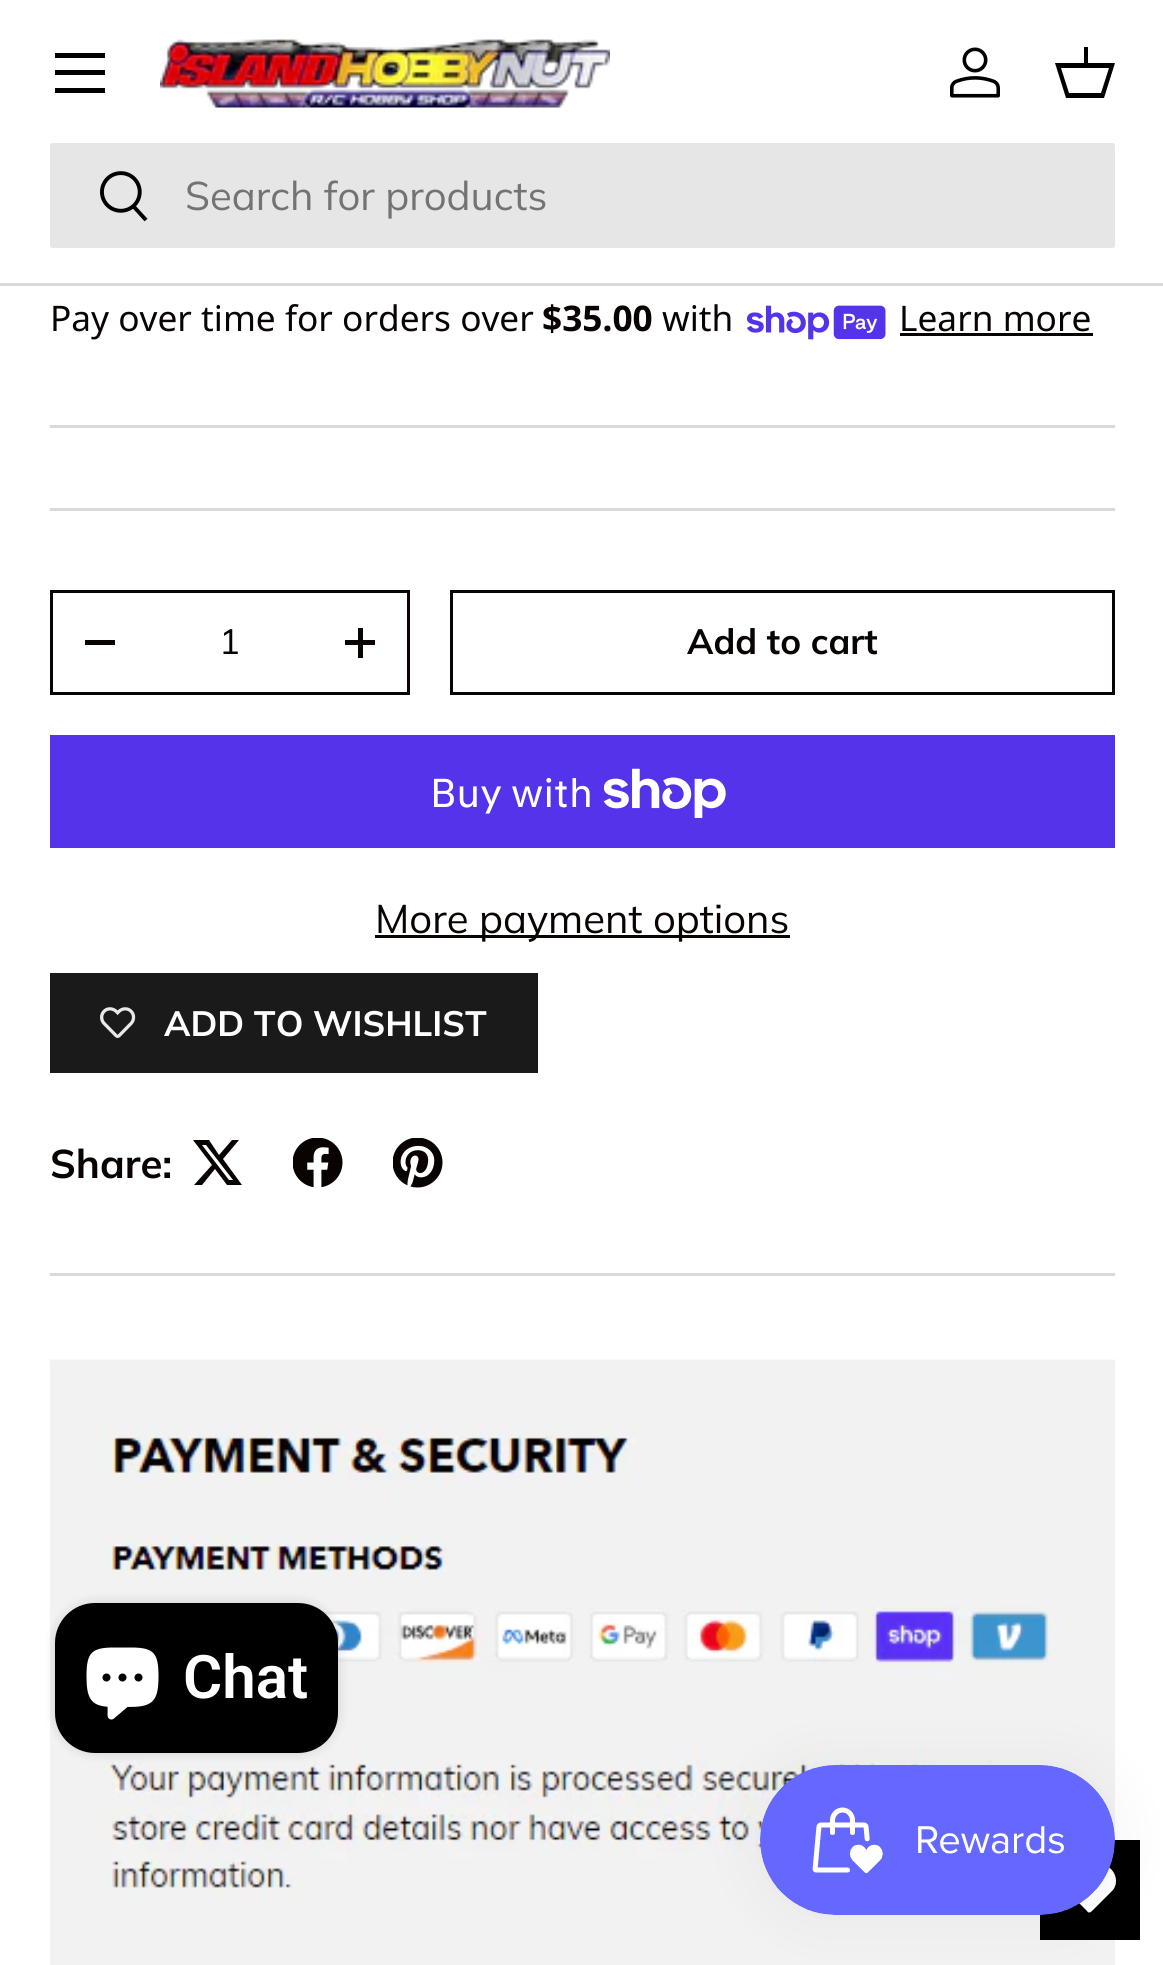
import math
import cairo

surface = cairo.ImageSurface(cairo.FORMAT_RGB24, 1163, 1965)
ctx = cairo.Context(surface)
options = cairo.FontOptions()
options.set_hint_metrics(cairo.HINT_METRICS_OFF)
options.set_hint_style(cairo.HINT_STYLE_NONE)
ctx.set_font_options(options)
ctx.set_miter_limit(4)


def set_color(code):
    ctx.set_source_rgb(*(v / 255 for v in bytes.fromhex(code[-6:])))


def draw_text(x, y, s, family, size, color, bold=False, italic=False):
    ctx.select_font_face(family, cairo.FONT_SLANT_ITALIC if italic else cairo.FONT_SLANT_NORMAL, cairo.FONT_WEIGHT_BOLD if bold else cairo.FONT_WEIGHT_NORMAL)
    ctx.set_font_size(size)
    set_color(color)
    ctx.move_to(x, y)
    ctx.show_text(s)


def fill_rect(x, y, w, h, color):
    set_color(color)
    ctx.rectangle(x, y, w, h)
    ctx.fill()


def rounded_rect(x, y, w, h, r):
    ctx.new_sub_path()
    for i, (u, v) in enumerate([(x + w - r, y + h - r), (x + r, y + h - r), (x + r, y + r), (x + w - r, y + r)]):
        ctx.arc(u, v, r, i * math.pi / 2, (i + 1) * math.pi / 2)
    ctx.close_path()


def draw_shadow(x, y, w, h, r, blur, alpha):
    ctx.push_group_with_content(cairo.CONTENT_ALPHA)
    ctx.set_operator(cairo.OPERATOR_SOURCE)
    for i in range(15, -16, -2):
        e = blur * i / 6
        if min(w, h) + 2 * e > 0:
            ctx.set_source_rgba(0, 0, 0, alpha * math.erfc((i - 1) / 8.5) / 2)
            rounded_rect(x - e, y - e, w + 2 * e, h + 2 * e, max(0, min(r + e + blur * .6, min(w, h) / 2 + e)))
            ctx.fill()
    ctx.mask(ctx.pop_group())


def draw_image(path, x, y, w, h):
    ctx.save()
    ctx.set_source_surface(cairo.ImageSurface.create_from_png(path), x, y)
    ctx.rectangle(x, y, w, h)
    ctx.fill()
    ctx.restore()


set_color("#ffffff")
ctx.paint()
fill_rect(0, 283, 1163, 3, "#d9d9d9")
fill_rect(55, 53, 50, 5, "#000000")
fill_rect(55, 88, 50, 5, "#000000")
fill_rect(55, 70, 50, 5, "#000000")
draw_image("assets/img1.png", 160, 39, 450, 69)
draw_image("assets/img2.png", 950, 47, 50, 51)
ctx.new_path()
ctx.move_to(1084, 63)
ctx.line_to(1084, 47)
ctx.line_to(1088, 47)
ctx.line_to(1088, 63)
ctx.line_to(1115, 63)
ctx.line_to(1104, 98)
ctx.line_to(1066, 98)
ctx.line_to(1055, 63)
ctx.close_path()
ctx.move_to(1061, 68)
ctx.line_to(1069, 93)
ctx.line_to(1101, 93)
ctx.line_to(1109, 68)
ctx.close_path()
ctx.fill()
set_color("#e6e6e6")
rounded_rect(50, 143, 1065, 105, 2.5)
ctx.fill()
draw_image("assets/img3.png", 100, 171, 48, 51)
draw_text(185, 210, "Search for products", "Muli", 40, "#737373")
draw_text(50, 331, "Pay over time for orders over", "Noto Sans", 35.25, "#090302")
draw_text(542, 331, "$35.00", "Noto Sans", 35.25, "#090302", bold=True)
draw_text(662, 331, "with", "Noto Sans", 35.25, "#090302")
draw_image("assets/img4.png", 746, 305, 140, 35)
draw_text(899, 331, "Learn more", "Noto Sans", 35.25, "#090302")
fill_rect(900, 333, 193, 3, "#090302")
fill_rect(50, 425, 1065, 3, "#dad9d9")
fill_rect(50, 508, 1065, 3, "#dad9d9")
ctx.rectangle(51.5, 591.5, 357, 102)
set_color("#090302")
ctx.set_line_width(3)
ctx.stroke()
fill_rect(85, 640, 30, 5, "#090302")
draw_text(219, 654, "1", "Muli", 35.25, "#090302")
fill_rect(345, 640, 30, 5, "#090302")
fill_rect(358, 628, 5, 30, "#090302")
ctx.rectangle(451.5, 591.5, 662, 102)
ctx.stroke()
draw_text(687, 654, "Add to cart", "Muli", 35.25, "#090302", bold=True)
fill_rect(50, 735, 1065, 113, "#5433eb")
draw_text(430, 807, "Buy with", "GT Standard", 40, "#ffffff")
draw_image("assets/img5.png", 603, 768, 123, 50)
fill_rect(375, 935, 415, 3, "#090302")
draw_text(375, 933, "More payment options", "Muli", 40, "#090302")
fill_rect(50, 973, 488, 100, "#1a1a1a")
draw_image("assets/img6.png", 100, 1007, 36, 31)
draw_text(164, 1036, "ADD TO WISHLIST", "Muli", 35.25, "#ffffff", bold=True)
draw_text(50, 1178, "Share:", "Muli", 40, "#090302", bold=True)
ctx.new_path()
ctx.move_to(232, 1140)
ctx.line_to(239, 1140)
ctx.line_to(223, 1159)
ctx.line_to(242, 1185)
ctx.line_to(227, 1185)
ctx.line_to(215, 1169)
ctx.line_to(202, 1185)
ctx.line_to(194, 1185)
ctx.line_to(212, 1165)
ctx.line_to(193, 1140)
ctx.line_to(209, 1140)
ctx.line_to(219, 1155)
ctx.close_path()
ctx.move_to(229, 1180)
ctx.line_to(233, 1180)
ctx.line_to(206, 1145)
ctx.line_to(202, 1145)
ctx.close_path()
ctx.fill()
draw_image("assets/img7.png", 293, 1138, 50, 50)
draw_image("assets/img8.png", 393, 1138, 50, 50)
fill_rect(50, 1273, 1065, 3, "#dad9d9")
draw_image("assets/img9.png", 50, 1359, 1065, 606)
set_color("#000000")
draw_shadow(55, 1603, 283, 150, 40, 6, 0.15)
set_color("#000000")
rounded_rect(55, 1603, 283, 150, 40)
ctx.fill()
draw_image("assets/img10.png", 86, 1647, 73, 73)
draw_text(183, 1698, "Chat", "Roboto SemiBold", 60, "#ffffff")
fill_rect(1040, 1840, 100, 100, "#000000")
set_color("#ffffff")
ctx.new_path()
ctx.move_to(1111, 1869)
ctx.curve_to(1103, 1863, 1095, 1866, 1089, 1873)
ctx.line_to(1087, 1870)
ctx.curve_to(1082, 1865, 1073, 1864, 1068, 1869)
ctx.curve_to(1061, 1875, 1061, 1885, 1067, 1891)
ctx.line_to(1087, 1911)
ctx.curve_to(1088, 1913, 1090, 1913, 1092, 1911)
ctx.line_to(1112, 1891)
ctx.curve_to(1118, 1885, 1117, 1875, 1111, 1869)
ctx.close_path()
ctx.fill()
set_color("#000000")
draw_shadow(760, 1765, 355, 150, 75, 31, 0.05)
draw_image("assets/img11.png", 760, 1765, 355, 150)
surface.write_to_png("output.png")
